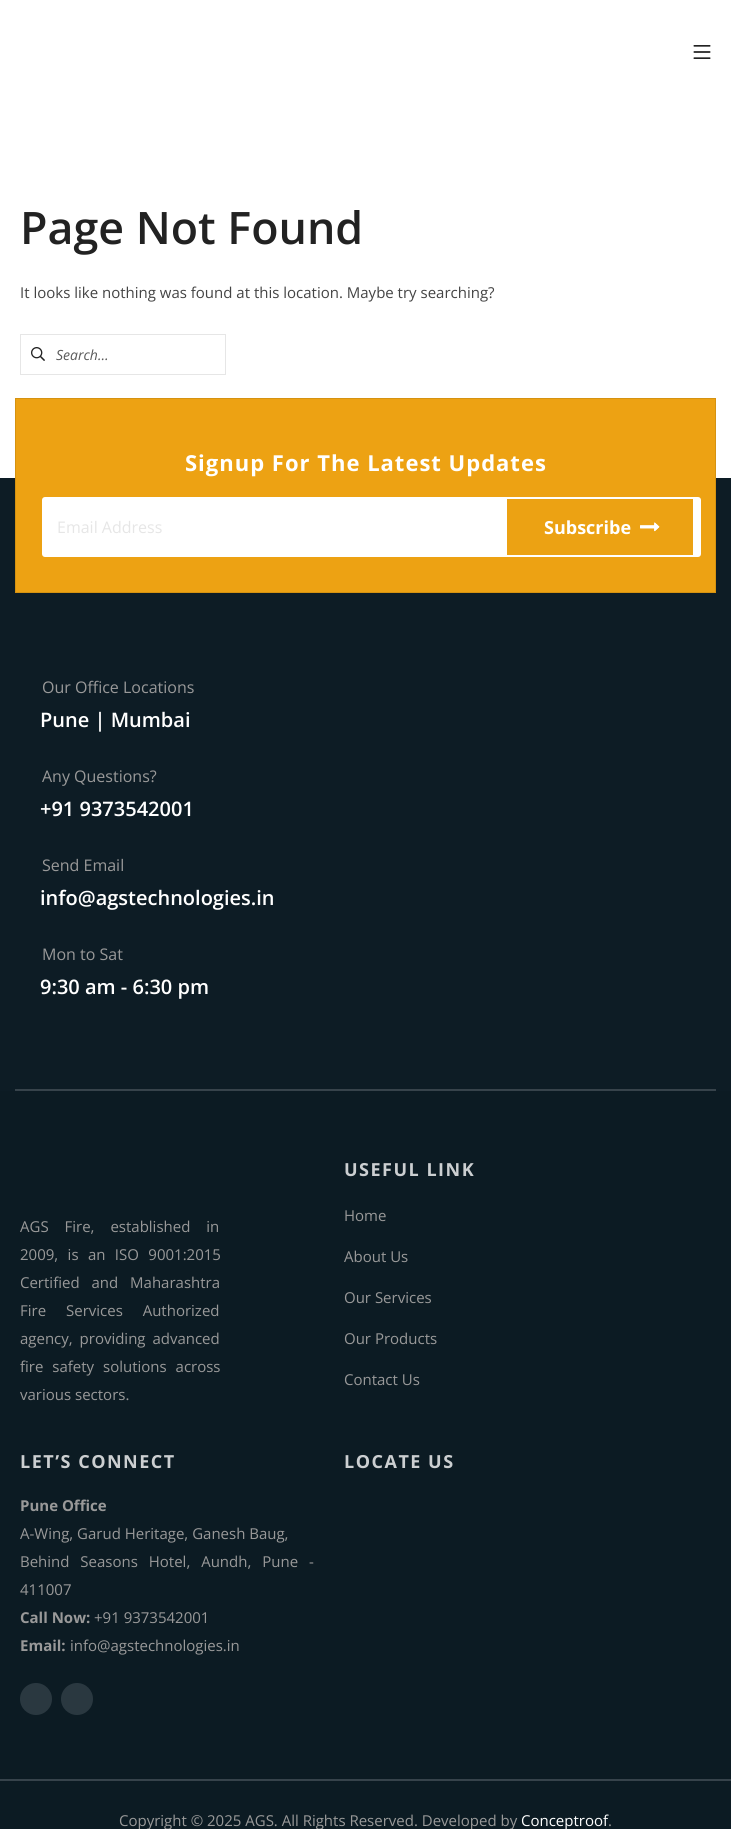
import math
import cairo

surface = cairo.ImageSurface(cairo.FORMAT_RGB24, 731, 1829)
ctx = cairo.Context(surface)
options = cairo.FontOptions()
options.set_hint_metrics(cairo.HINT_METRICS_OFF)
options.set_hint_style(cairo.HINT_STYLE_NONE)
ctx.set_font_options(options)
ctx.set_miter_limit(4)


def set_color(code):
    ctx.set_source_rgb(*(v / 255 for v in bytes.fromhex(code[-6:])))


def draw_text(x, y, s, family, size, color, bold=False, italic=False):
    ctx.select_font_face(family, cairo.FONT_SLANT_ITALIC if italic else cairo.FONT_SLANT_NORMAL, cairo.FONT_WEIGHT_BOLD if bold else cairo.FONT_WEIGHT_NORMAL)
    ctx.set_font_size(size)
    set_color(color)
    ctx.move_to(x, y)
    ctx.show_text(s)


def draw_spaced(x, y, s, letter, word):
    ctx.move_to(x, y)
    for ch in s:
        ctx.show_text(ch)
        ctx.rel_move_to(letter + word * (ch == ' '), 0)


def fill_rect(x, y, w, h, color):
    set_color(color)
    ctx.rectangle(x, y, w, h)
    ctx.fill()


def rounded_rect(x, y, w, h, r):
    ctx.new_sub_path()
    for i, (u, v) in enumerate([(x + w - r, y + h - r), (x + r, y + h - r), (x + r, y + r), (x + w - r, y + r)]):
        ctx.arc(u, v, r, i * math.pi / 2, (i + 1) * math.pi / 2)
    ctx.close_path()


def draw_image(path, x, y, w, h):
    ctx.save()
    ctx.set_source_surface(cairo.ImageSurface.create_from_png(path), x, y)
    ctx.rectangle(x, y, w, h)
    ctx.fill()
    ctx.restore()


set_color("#ffffff")
ctx.paint()
draw_image("assets/img1.png", 693, 45, 18, 14)
draw_text(20, 244, "Page Not Found", "Open Sans SemiBold", 44.75, "#222222")
draw_text(20, 298, "It looks like nothing was found at this location. Maybe try searching?", "Open Sans", 15, "#444444")
ctx.rectangle(20.5, 334.5, 205, 40)
set_color("#e6e6e6")
ctx.set_line_width(1)
ctx.stroke()
draw_image("assets/img2.png", 31, 347, 14, 14)
draw_text(56, 360, "Search…", "Open Sans", 14, "#595959", italic=True)
fill_rect(0, 478, 731, 613, "#0d1c25")
set_color("#eda213")
ctx.rectangle(15.5, 398.5, 700, 194)
ctx.fill_preserve()
set_color("#d59211")
ctx.stroke()
ctx.select_font_face("Open Sans", cairo.FONT_SLANT_NORMAL, cairo.FONT_WEIGHT_BOLD)
ctx.set_font_size(22)
set_color("#ffffff")
draw_spaced(185, 471, "Signup For The Latest Updates", 1, 0)
rounded_rect(42, 497, 659, 60, 3)
ctx.fill()
draw_text(57, 533, "Email Address", "Open Sans", 16, "#e6e6e6")
set_color("#eca213")
rounded_rect(506, 498, 188, 58, 1)
ctx.fill_preserve()
set_color("#ffffff")
ctx.set_line_width(2)
ctx.stroke()
draw_text(544, 534, "Subscribe", "Open Sans", 18, "#ffffff", bold=True)
draw_image("assets/img4.png", 640, 522, 20, 10)
draw_image("assets/img3.png", 640, 522, 20, 10)
draw_text(42, 693, "Our Office Locations", "Open Sans", 16, "#999999")
draw_text(40, 727, "Pune | Mumbai", "Open Sans SemiBold", 20, "#ffffff")
draw_text(42, 782, "Any Questions?", "Open Sans", 16, "#999999")
draw_text(40, 816, "+91 9373542001", "Open Sans SemiBold", 20, "#ffffff")
draw_text(42, 871, "Send Email", "Open Sans", 16, "#999999")
draw_text(40, 905, "info@agstechnologies.in", "Open Sans SemiBold", 20, "#ffffff")
draw_text(42, 960, "Mon to Sat", "Open Sans", 16, "#999999")
draw_text(40, 994, "9:30 am - 6:30 pm", "Open Sans SemiBold", 20, "#ffffff")
fill_rect(15, 1089, 701, 2, "#37434b")
fill_rect(0, 1091, 731, 688, "#0c1b23")
ctx.select_font_face("Open Sans")
ctx.set_font_size(15)
set_color("#999999")
draw_spaced(20, 1232, "AGS Fire, established in", 0, 12)
draw_spaced(20, 1260, "2009, is an ISO 9001:2015", 0, 5.5)
draw_spaced(20, 1288, "Certified and Maharashtra", 0, 8)
draw_spaced(20, 1316, "Fire Services Authorized", 0, 16)
draw_spaced(20, 1344, "agency, providing advanced", 0, 3)
draw_spaced(20, 1372, "fire safety solutions across", 0, 5)
draw_text(20, 1400, "various sectors.", "Open Sans", 15, "#999999")
ctx.select_font_face("Open Sans", cairo.FONT_SLANT_NORMAL, cairo.FONT_WEIGHT_BOLD)
ctx.set_font_size(18)
set_color("#cccfd1")
draw_spaced(344, 1176, "USEFUL LINK", 1.5, 0)
draw_text(344, 1221, "Home", "Open Sans", 15, "#999999")
draw_text(344, 1262, "About Us", "Open Sans", 15, "#999999")
draw_text(344, 1303, "Our Services", "Open Sans", 15, "#999999")
draw_text(344, 1344, "Our Products", "Open Sans", 15, "#999999")
draw_text(344, 1385, "Contact Us", "Open Sans", 15, "#999999")
ctx.select_font_face("Open Sans", cairo.FONT_SLANT_NORMAL, cairo.FONT_WEIGHT_BOLD)
ctx.set_font_size(18)
set_color("#cccfd1")
draw_spaced(20, 1468, "LET’S CONNECT", 1.5, 0)
draw_text(20, 1511, "Pune Office", "Open Sans", 15, "#999999", bold=True)
draw_text(20, 1539, "A-Wing, Garud Heritage, Ganesh Baug,", "Open Sans", 15, "#999999")
draw_spaced(20, 1567, "Behind Seasons Hotel, Aundh, Pune -", 0, 7)
draw_text(20, 1595, "411007", "Open Sans", 15, "#999999")
draw_text(20, 1623, "Call Now:", "Open Sans", 15, "#999999", bold=True)
draw_text(94, 1623, "+91 9373542001", "Open Sans", 15, "#999999")
draw_text(20, 1651, "Email:", "Open Sans", 15, "#999999", bold=True)
draw_text(70, 1651, "info@agstechnologies.in", "Open Sans", 15, "#999999")
set_color("#2a3840")
ctx.new_path()
ctx.arc(36, 1699, 16, 0, 2 * math.pi)
ctx.fill()
ctx.arc(77, 1699, 16, 0, 2 * math.pi)
ctx.fill()
ctx.select_font_face("Open Sans", cairo.FONT_SLANT_NORMAL, cairo.FONT_WEIGHT_BOLD)
ctx.set_font_size(18)
set_color("#cccfd1")
draw_spaced(344, 1468, "LOCATE US", 1.5, 0)
fill_rect(0, 1779, 731, 2, "#37434b")
fill_rect(0, 1781, 731, 48, "#0c1b23")
draw_text(119, 1826, "Copyright © 2025 AGS. All Rights Reserved. Developed by", "Open Sans", 15, "#999999")
draw_text(521, 1826, "Conceptroof", "Open Sans", 15, "#ffffff")
draw_text(608, 1826, ".", "Open Sans", 15, "#999999")
surface.write_to_png("output.png")
